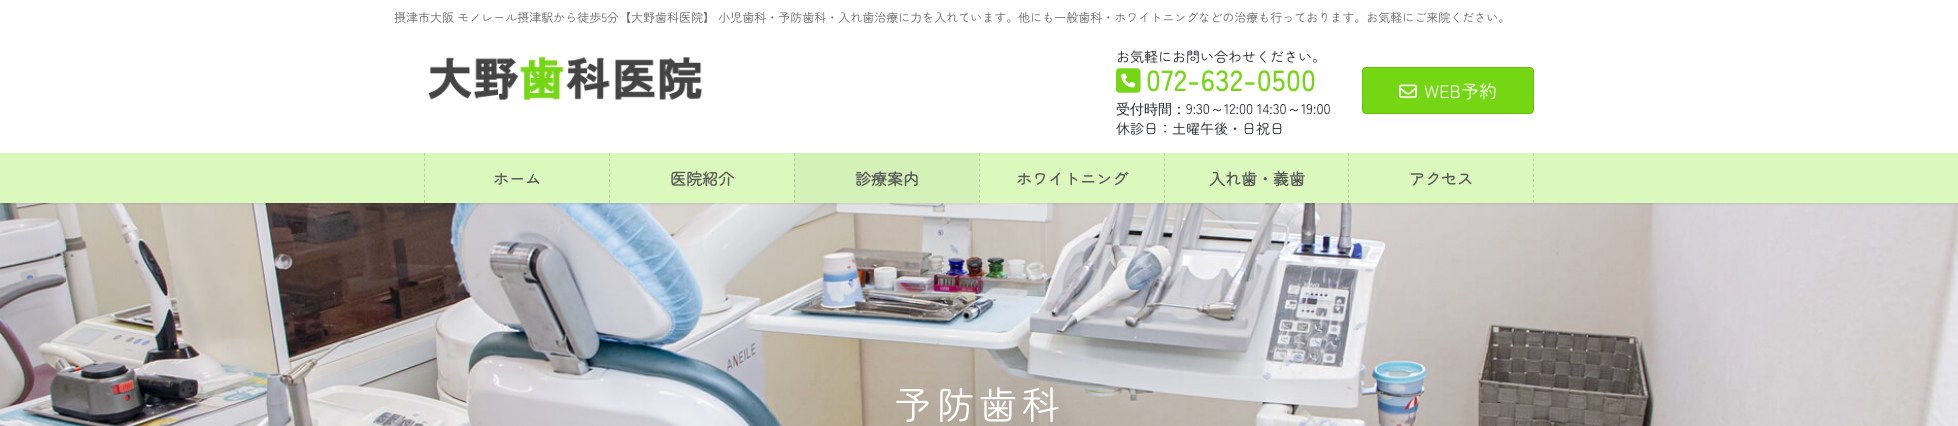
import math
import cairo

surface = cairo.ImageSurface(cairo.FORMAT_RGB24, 1958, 426)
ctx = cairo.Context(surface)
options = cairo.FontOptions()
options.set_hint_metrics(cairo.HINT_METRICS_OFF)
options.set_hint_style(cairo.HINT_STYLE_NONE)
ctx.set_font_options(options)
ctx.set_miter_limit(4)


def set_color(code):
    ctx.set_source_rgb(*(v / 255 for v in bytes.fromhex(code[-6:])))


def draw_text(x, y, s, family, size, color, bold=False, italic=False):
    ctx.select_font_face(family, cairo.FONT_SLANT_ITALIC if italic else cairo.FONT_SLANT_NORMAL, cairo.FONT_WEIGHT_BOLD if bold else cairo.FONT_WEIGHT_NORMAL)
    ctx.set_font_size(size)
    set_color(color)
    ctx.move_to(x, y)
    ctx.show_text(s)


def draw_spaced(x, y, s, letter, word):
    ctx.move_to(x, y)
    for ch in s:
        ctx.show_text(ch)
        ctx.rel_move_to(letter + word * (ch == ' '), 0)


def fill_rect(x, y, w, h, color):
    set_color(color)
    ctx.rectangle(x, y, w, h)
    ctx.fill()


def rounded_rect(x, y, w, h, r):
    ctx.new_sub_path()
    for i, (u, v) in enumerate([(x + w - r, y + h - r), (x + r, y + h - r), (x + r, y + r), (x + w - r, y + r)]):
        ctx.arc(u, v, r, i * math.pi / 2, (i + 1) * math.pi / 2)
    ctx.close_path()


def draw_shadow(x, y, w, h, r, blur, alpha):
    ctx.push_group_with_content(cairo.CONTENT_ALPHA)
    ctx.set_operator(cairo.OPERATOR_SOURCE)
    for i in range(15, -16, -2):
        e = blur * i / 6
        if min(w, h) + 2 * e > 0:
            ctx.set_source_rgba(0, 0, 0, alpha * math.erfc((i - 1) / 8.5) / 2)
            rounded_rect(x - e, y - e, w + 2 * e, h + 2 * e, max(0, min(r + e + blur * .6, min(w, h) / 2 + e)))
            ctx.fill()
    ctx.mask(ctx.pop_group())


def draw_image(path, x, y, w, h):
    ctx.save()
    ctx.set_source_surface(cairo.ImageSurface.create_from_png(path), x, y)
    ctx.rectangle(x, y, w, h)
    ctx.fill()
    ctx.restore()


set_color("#ffffff")
ctx.paint()
draw_image("assets/img4.png", 0, 203, 1958, 223)
ctx.save()
ctx.rectangle(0, 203, 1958, 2)
ctx.clip()
set_color("#000000")
draw_shadow(0, -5, 1958, 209, 0, 1.5, 0.1)
ctx.restore()
draw_text(394, 22, "摂津市大阪 モノレール摂津駅から徒歩5分【大野歯科医院】 小児歯科・予防歯科・入れ歯治療に力を入れています。他にも一般歯科・ホワイトニングなどの治療も行っております。お気軽にご来院ください。", "Zen Maru Gothic", 12, "#666666")
draw_image("assets/img1.png", 428, 56, 275, 44)
draw_text(1116, 62, "お気軽にお問い合わせください。", "Zen Maru Gothic", 14, "#212529")
draw_image("assets/img2.png", 1116, 68, 25, 25)
ctx.select_font_face("Zen Maru Gothic", cairo.FONT_SLANT_NORMAL, cairo.FONT_WEIGHT_BOLD)
ctx.set_font_size(28)
set_color("#75d614")
draw_spaced(1146, 91, "072-632-0500", 1, 0)
draw_text(1116, 114, "受付時間：", "WenQuanYi Zen Hei Medium", 14, "#212529")
draw_text(1186, 114, "9:30", "Zen Maru Gothic", 14, "#212529")
draw_text(1210, 114, "～", "WenQuanYi Zen Hei Medium", 14, "#212529")
draw_text(1224, 114, "12:00 14:30", "Zen Maru Gothic", 14, "#212529")
draw_text(1287, 114, "～", "WenQuanYi Zen Hei Medium", 14, "#212529")
draw_text(1301, 114, "19:00", "Zen Maru Gothic", 14, "#212529")
draw_text(1116, 134, "休診日：土曜午後・日祝日", "Zen Maru Gothic", 14, "#212529")
set_color("#75d614")
rounded_rect(1362.5, 67.5, 171, 46, 3.5)
ctx.fill_preserve()
set_color("#63c204")
ctx.set_line_width(1)
ctx.stroke()
draw_image("assets/img3.png", 1399, 84, 18, 14)
draw_text(1424, 98, "WEB予約", "Zen Maru Gothic", 18, "#ffffff")
fill_rect(0, 153, 1958, 50, "#dbf9bd")
ctx.new_path()
ctx.move_to(424.5, 153)
ctx.line_to(424.5, 203)
set_color("#bad4a1")
ctx.set_dash([3, 2.22])
ctx.stroke()
draw_text(493, 185, "ホーム", "Zen Maru Gothic", 16, "#595959", bold=True)
ctx.new_path()
ctx.move_to(609.5, 153)
ctx.line_to(609.5, 203)
set_color("#bad4a1")
ctx.stroke()
draw_text(670, 185, "医院紹介", "Zen Maru Gothic", 16, "#595959", bold=True)
fill_rect(794, 153, 185, 50, "#d4f2b7")
ctx.new_path()
ctx.move_to(794.5, 153)
ctx.line_to(794.5, 203)
set_color("#b4ce9c")
ctx.stroke()
draw_text(855, 185, "診療案内", "Zen Maru Gothic", 16, "#595959", bold=True)
ctx.new_path()
ctx.move_to(979.5, 153)
ctx.line_to(979.5, 203)
set_color("#bad4a1")
ctx.stroke()
draw_text(1016, 185, "ホワイトニング", "Zen Maru Gothic", 16, "#595959", bold=True)
ctx.new_path()
ctx.move_to(1164.5, 153)
ctx.line_to(1164.5, 203)
set_color("#bad4a1")
ctx.stroke()
draw_text(1209, 185, "入れ歯・義歯", "Zen Maru Gothic", 16, "#595959", bold=True)
ctx.new_path()
ctx.move_to(1533.5, 153)
ctx.line_to(1533.5, 203)
set_color("#bad4a1")
ctx.stroke()
ctx.new_path()
ctx.move_to(1348.5, 153)
ctx.line_to(1348.5, 203)
ctx.stroke()
draw_text(1409, 185, "アクセス", "Zen Maru Gothic", 16, "#595959", bold=True)
ctx.select_font_face("Zen Maru Gothic")
ctx.set_font_size(38)
set_color("#ffffff")
draw_spaced(894, 419, "予防歯科", 4.5, 0)
surface.write_to_png("output.png")
